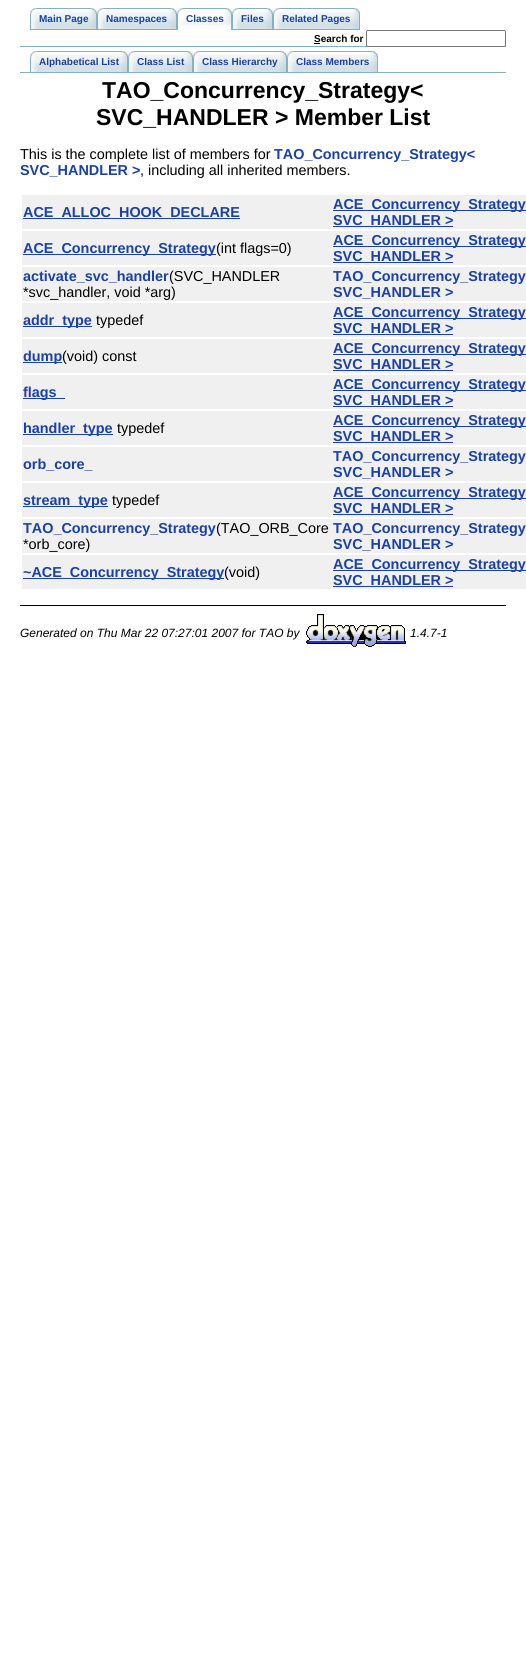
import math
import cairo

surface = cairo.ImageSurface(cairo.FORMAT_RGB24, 526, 1673)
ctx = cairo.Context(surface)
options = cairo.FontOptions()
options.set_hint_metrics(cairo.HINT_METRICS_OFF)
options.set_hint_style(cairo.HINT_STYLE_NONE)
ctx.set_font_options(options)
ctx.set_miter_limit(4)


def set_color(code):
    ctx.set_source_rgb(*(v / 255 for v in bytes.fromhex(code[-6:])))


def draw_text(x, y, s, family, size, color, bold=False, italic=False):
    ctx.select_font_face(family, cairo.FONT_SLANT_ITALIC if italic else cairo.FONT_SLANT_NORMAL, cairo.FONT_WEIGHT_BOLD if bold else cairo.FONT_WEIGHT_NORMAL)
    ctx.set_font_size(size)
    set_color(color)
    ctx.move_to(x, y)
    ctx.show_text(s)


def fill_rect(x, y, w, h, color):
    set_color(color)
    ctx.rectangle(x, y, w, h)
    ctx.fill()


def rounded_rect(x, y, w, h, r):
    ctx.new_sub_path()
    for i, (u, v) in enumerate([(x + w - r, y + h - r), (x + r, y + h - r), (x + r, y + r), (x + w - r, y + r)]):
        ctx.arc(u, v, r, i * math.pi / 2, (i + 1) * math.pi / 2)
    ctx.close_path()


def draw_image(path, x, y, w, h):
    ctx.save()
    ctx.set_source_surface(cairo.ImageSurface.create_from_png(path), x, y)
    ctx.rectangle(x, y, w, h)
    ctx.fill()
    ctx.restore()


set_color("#ffffff")
ctx.paint()
fill_rect(20, 46, 486, 1, "#84b0c7")
draw_image("assets/img1.png", 39, 8, 58, 21)
fill_rect(30, 29, 147, 1, "#84b0c7")
draw_image("assets/img2.png", 30, 8, 9, 21)
draw_text(39, 22, "Main Page", "Liberation Sans", 10, "#1a419d", bold=True)
draw_image("assets/img3.png", 106, 8, 71, 21)
draw_image("assets/img2.png", 97, 8, 9, 21)
draw_text(106, 22, "Namespaces", "Liberation Sans", 10, "#1a419d", bold=True)
draw_image("assets/img4.png", 184, 8, 48, 22)
draw_image("assets/img5.png", 177, 8, 7, 22)
draw_text(186, 22, "Classes", "Liberation Sans", 10, "#1a419d", bold=True)
draw_image("assets/img6.png", 241, 8, 32, 21)
fill_rect(232, 29, 128, 1, "#84b0c7")
draw_image("assets/img2.png", 232, 8, 9, 21)
draw_text(241, 22, "Files", "Liberation Sans", 10, "#1a419d", bold=True)
draw_image("assets/img7.png", 282, 8, 78, 21)
draw_image("assets/img2.png", 273, 8, 9, 21)
draw_text(282, 22, "Related Pages", "Liberation Sans", 10, "#1a419d", bold=True)
draw_text(314, 42, "Search for", "Liberation Sans", 10, "#000000", bold=True)
fill_rect(314, 43, 6, 1, "#000000")
set_color("#ffffff")
rounded_rect(366.5, 30.5, 139, 16, 1.5)
ctx.fill_preserve()
set_color("#767676")
ctx.set_line_width(1)
ctx.stroke()
fill_rect(20, 72, 486, 1, "#84b0c7")
draw_image("assets/img8.png", 39, 51, 89, 21)
draw_image("assets/img2.png", 30, 51, 9, 21)
draw_text(39, 65, "Alphabetical List", "Liberation Sans", 10, "#1a419d", bold=True)
draw_image("assets/img9.png", 137, 51, 56, 21)
draw_image("assets/img2.png", 128, 51, 9, 21)
draw_text(137, 65, "Class List", "Liberation Sans", 10, "#1a419d", bold=True)
draw_image("assets/img10.png", 202, 51, 85, 21)
draw_image("assets/img2.png", 193, 51, 9, 21)
draw_text(202, 65, "Class Hierarchy", "Liberation Sans", 10, "#1a419d", bold=True)
draw_image("assets/img11.png", 296, 51, 82, 21)
draw_image("assets/img2.png", 287, 51, 9, 21)
draw_text(296, 65, "Class Members", "Liberation Sans", 10, "#1a419d", bold=True)
draw_text(102, 98, "TAO_Concurrency_Strategy<", "Liberation Sans", 23, "#000000", bold=True)
draw_text(96, 125, "SVC_HANDLER > Member List", "Liberation Sans", 23, "#000000", bold=True)
draw_text(20, 159, "This is the complete list of members for", "Liberation Sans", 14.4, "#000000")
draw_text(274, 159, "TAO_Concurrency_Strategy<", "Liberation Sans", 14.4, "#1a41a8", bold=True)
draw_text(20, 175, "SVC_HANDLER >", "Liberation Sans", 14.4, "#1a41a8", bold=True)
draw_text(140, 175, ", including all inherited members.", "Liberation Sans", 14.4, "#000000")
fill_rect(22, 195, 504, 34, "#f0f0f0")
fill_rect(23, 218, 217, 1, "#1a41a8")
draw_text(23, 217, "ACE_ALLOC_HOOK_DECLARE", "Liberation Sans", 14.4, "#1a41a8", bold=True)
fill_rect(333, 210, 193, 1, "#1a41a8")
draw_text(333, 209, "ACE_Concurrency_Strategy", "Liberation Sans", 14.4, "#1a41a8", bold=True)
fill_rect(333, 226, 120, 1, "#1a41a8")
draw_text(333, 225, "SVC_HANDLER >", "Liberation Sans", 14.4, "#1a41a8", bold=True)
fill_rect(22, 231, 504, 34, "#f0f0f0")
fill_rect(23, 254, 193, 1, "#1a41a8")
draw_text(23, 253, "ACE_Concurrency_Strategy", "Liberation Sans", 14.4, "#1a41a8", bold=True)
draw_text(216, 253, "(int flags=0)", "Liberation Sans", 14.4, "#000000")
fill_rect(333, 246, 193, 1, "#1a41a8")
draw_text(333, 245, "ACE_Concurrency_Strategy", "Liberation Sans", 14.4, "#1a41a8", bold=True)
fill_rect(333, 262, 120, 1, "#1a41a8")
draw_text(333, 261, "SVC_HANDLER >", "Liberation Sans", 14.4, "#1a41a8", bold=True)
fill_rect(22, 267, 504, 34, "#f0f0f0")
draw_text(23, 281, "activate_svc_handler", "Liberation Sans", 14.4, "#1a41a8", bold=True)
draw_text(169, 281, "(SVC_HANDLER", "Liberation Sans", 14.4, "#000000")
draw_text(23, 297, "*svc_handler, void *arg)", "Liberation Sans", 14.4, "#000000")
draw_text(333, 281, "TAO_Concurrency_Strategy", "Liberation Sans", 14.4, "#1a41a8", bold=True)
draw_text(333, 297, "SVC_HANDLER >", "Liberation Sans", 14.4, "#1a41a8", bold=True)
fill_rect(22, 303, 504, 34, "#f0f0f0")
fill_rect(23, 326, 69, 1, "#1a41a8")
draw_text(23, 325, "addr_type", "Liberation Sans", 14.4, "#1a41a8", bold=True)
draw_text(96, 325, "typedef", "Liberation Sans", 14.4, "#000000")
fill_rect(333, 318, 193, 1, "#1a41a8")
draw_text(333, 317, "ACE_Concurrency_Strategy", "Liberation Sans", 14.4, "#1a41a8", bold=True)
fill_rect(333, 334, 120, 1, "#1a41a8")
draw_text(333, 333, "SVC_HANDLER >", "Liberation Sans", 14.4, "#1a41a8", bold=True)
fill_rect(22, 339, 504, 34, "#f0f0f0")
fill_rect(23, 362, 39, 1, "#1a41a8")
draw_text(23, 361, "dump", "Liberation Sans", 14.4, "#1a41a8", bold=True)
draw_text(62, 361, "(void) const", "Liberation Sans", 14.4, "#000000")
fill_rect(333, 354, 193, 1, "#1a41a8")
draw_text(333, 353, "ACE_Concurrency_Strategy", "Liberation Sans", 14.4, "#1a41a8", bold=True)
fill_rect(333, 370, 120, 1, "#1a41a8")
draw_text(333, 369, "SVC_HANDLER >", "Liberation Sans", 14.4, "#1a41a8", bold=True)
fill_rect(22, 375, 504, 34, "#f0f0f0")
fill_rect(23, 398, 42, 1, "#1a41a8")
draw_text(23, 397, "flags", "Liberation Sans", 14.4, "#1a41a8", bold=True)
fill_rect(333, 390, 193, 1, "#1a41a8")
draw_text(333, 389, "ACE_Concurrency_Strategy", "Liberation Sans", 14.4, "#1a41a8", bold=True)
fill_rect(333, 406, 120, 1, "#1a41a8")
draw_text(333, 405, "SVC_HANDLER >", "Liberation Sans", 14.4, "#1a41a8", bold=True)
fill_rect(22, 411, 504, 34, "#f0f0f0")
fill_rect(23, 434, 90, 1, "#1a41a8")
draw_text(23, 433, "handler_type", "Liberation Sans", 14.4, "#1a41a8", bold=True)
draw_text(117, 433, "typedef", "Liberation Sans", 14.4, "#000000")
fill_rect(333, 426, 193, 1, "#1a41a8")
draw_text(333, 425, "ACE_Concurrency_Strategy", "Liberation Sans", 14.4, "#1a41a8", bold=True)
fill_rect(333, 442, 120, 1, "#1a41a8")
draw_text(333, 441, "SVC_HANDLER >", "Liberation Sans", 14.4, "#1a41a8", bold=True)
fill_rect(22, 447, 504, 34, "#f0f0f0")
draw_text(23, 469, "orb_core_", "Liberation Sans", 14.4, "#1a41a8", bold=True)
draw_text(333, 461, "TAO_Concurrency_Strategy", "Liberation Sans", 14.4, "#1a41a8", bold=True)
draw_text(333, 477, "SVC_HANDLER >", "Liberation Sans", 14.4, "#1a41a8", bold=True)
fill_rect(22, 483, 504, 34, "#f0f0f0")
fill_rect(23, 506, 85, 1, "#1a41a8")
draw_text(23, 505, "stream_type", "Liberation Sans", 14.4, "#1a41a8", bold=True)
draw_text(112, 505, "typedef", "Liberation Sans", 14.4, "#000000")
fill_rect(333, 498, 193, 1, "#1a41a8")
draw_text(333, 497, "ACE_Concurrency_Strategy", "Liberation Sans", 14.4, "#1a41a8", bold=True)
fill_rect(333, 514, 120, 1, "#1a41a8")
draw_text(333, 513, "SVC_HANDLER >", "Liberation Sans", 14.4, "#1a41a8", bold=True)
fill_rect(22, 519, 504, 34, "#f0f0f0")
draw_text(23, 533, "TAO_Concurrency_Strategy", "Liberation Sans", 14.4, "#1a41a8", bold=True)
draw_text(216, 533, "(TAO_ORB_Core", "Liberation Sans", 14.4, "#000000")
draw_text(23, 549, "*orb_core)", "Liberation Sans", 14.4, "#000000")
draw_text(333, 533, "TAO_Concurrency_Strategy", "Liberation Sans", 14.4, "#1a41a8", bold=True)
draw_text(333, 549, "SVC_HANDLER >", "Liberation Sans", 14.4, "#1a41a8", bold=True)
fill_rect(22, 555, 504, 34, "#f0f0f0")
fill_rect(23, 578, 201, 1, "#1a41a8")
draw_text(23, 577, "~ACE_Concurrency_Strategy", "Liberation Sans", 14.4, "#1a41a8", bold=True)
draw_text(224, 577, "(void)", "Liberation Sans", 14.4, "#000000")
fill_rect(333, 570, 193, 1, "#1a41a8")
draw_text(333, 569, "ACE_Concurrency_Strategy", "Liberation Sans", 14.4, "#1a41a8", bold=True)
fill_rect(333, 586, 120, 1, "#1a41a8")
draw_text(333, 585, "SVC_HANDLER >", "Liberation Sans", 14.4, "#1a41a8", bold=True)
fill_rect(20, 605, 486, 1, "#000000")
draw_text(20, 637, "Generated on Thu Mar 22 07:27:01 2007 for TAO by", "Liberation Sans", 12, "#000000", italic=True)
draw_image("assets/img12.png", 306, 614, 100, 33)
draw_text(410, 637, "1.4.7-1", "Liberation Sans", 12, "#000000", italic=True)
surface.write_to_png("output.png")
